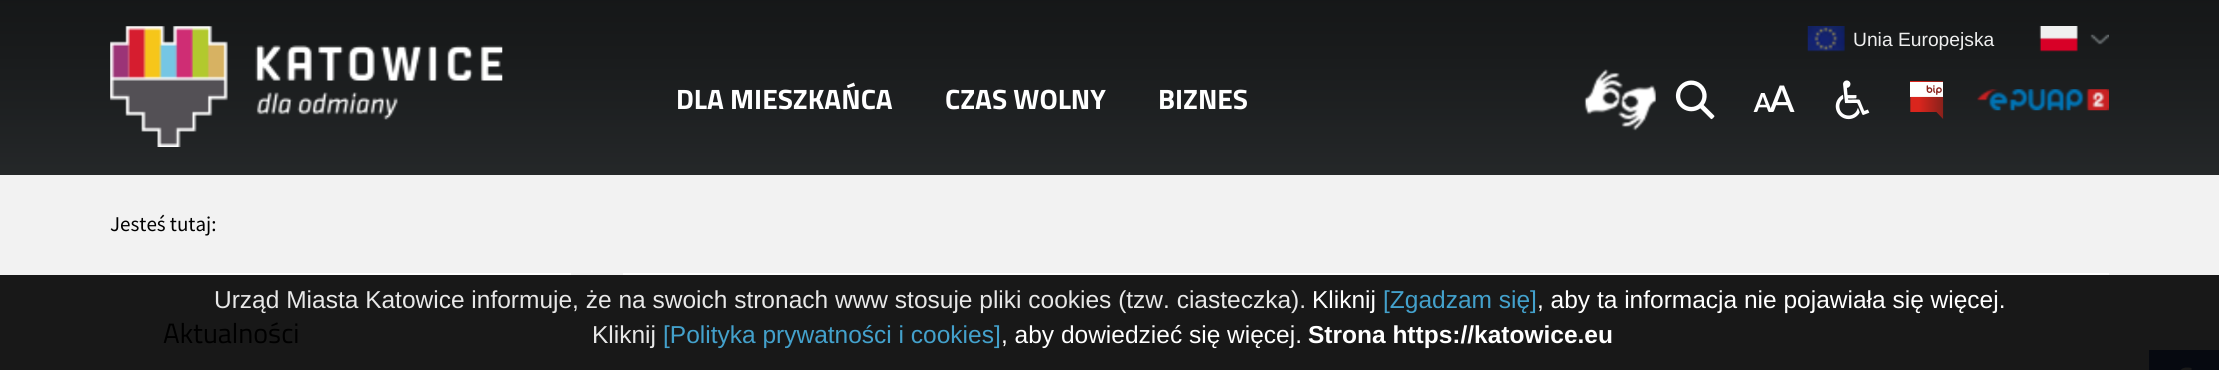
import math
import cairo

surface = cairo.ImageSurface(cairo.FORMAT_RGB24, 2219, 370)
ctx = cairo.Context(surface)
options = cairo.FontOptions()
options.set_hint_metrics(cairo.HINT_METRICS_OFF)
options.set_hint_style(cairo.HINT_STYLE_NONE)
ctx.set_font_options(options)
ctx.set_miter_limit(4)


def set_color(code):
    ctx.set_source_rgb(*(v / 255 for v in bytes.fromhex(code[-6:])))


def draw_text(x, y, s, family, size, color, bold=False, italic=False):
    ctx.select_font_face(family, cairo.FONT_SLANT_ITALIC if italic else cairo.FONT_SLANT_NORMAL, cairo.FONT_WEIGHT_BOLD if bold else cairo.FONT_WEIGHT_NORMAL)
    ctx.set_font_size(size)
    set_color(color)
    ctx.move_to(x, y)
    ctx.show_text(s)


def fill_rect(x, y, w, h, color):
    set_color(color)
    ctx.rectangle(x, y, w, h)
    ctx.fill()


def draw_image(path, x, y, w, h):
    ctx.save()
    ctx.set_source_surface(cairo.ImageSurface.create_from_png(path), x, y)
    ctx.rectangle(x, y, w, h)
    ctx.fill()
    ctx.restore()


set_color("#f2f2f2")
ctx.paint()
fill_rect(0, 275, 2219, 95, "#181818")
fill_rect(0, 0, 2219, 175, "#333739")
draw_image("assets/img1.png", 0, 0, 2219, 175)
draw_image("assets/img2.png", 110, 26, 393, 121)
draw_image("assets/img3.png", 1807, 26, 38, 26)
draw_text(1853, 46, "Unia Europejska", "Liberation Sans", 19.25, "#eeeeee")
draw_image("assets/img4.png", 2039, 26, 39, 26)
draw_image("assets/img5.png", 2090, 34, 19, 11)
draw_image("assets/img6.png", 1584, 69, 72, 62)
draw_image("assets/img7.png", 1675, 80, 40, 40)
draw_image("assets/img8.png", 1753, 85, 42, 27)
draw_image("assets/img9.png", 1835, 80, 35, 40)
draw_image("assets/img10.png", 1910, 81, 34, 38)
draw_image("assets/img11.png", 1976, 89, 133, 22)
fill_rect(2149, 350, 70, 20, "#060910")
set_color("#191919")
ctx.new_path()
ctx.move_to(2190, 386)
ctx.line_to(2191, 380)
ctx.line_to(2185.5, 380)
ctx.curve_to(2185.5, 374, 2185, 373, 2191.5, 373)
ctx.line_to(2191.5, 368)
ctx.curve_to(2186, 367, 2180, 367, 2179, 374)
ctx.line_to(2179, 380)
ctx.line_to(2173.5, 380)
ctx.line_to(2173.5, 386)
ctx.line_to(2179, 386)
ctx.line_to(2179, 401)
ctx.line_to(2185.5, 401)
ctx.line_to(2185.5, 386)
ctx.close_path()
ctx.fill()
draw_text(676, 109, "DLA MIESZKAŃCA", "Titillium Web", 28, "#ffffff", bold=True)
draw_text(945, 109, "CZAS WOLNY", "Titillium Web", 28, "#ffffff", bold=True)
draw_text(1158, 109, "BIZNES", "Titillium Web", 28, "#ffffff", bold=True)
draw_text(110, 231, "Jesteś tutaj:", "Source Sans Pro", 21, "#000000")
fill_rect(623, 273, 1486, 2, "#ffffff")
fill_rect(110, 273, 461, 2, "#ffffff")
draw_text(163, 343, "Aktualności", "Titillium Web", 28, "#000000")
draw_text(214, 308, "Urząd Miasta Katowice informuje, że na swoich stronach www stosuje pliki cookies (tzw. ciasteczka).", "Liberation Sans", 24.5, "#e8e8e8")
draw_text(1312, 308, "Kliknij", "Liberation Sans", 24.5, "#ffffff")
draw_text(1383, 308, "[Zgadzam się]", "Liberation Sans", 24.5, "#43a1cc")
draw_text(1537, 308, ", aby ta informacja nie pojawiała się więcej.", "Liberation Sans", 24.5, "#ffffff")
draw_text(592, 343, "Kliknij", "Liberation Sans", 24.5, "#e8e8e8")
draw_text(663, 343, "[Polityka prywatności i cookies]", "Liberation Sans", 24.5, "#43a1cc")
draw_text(1001, 343, ", aby dowiedzieć się więcej.", "Liberation Sans", 24.5, "#ffffff")
draw_text(1308, 343, "Strona https://katowice.eu", "Liberation Sans", 24.5, "#ffffff", bold=True)
surface.write_to_png("output.png")
